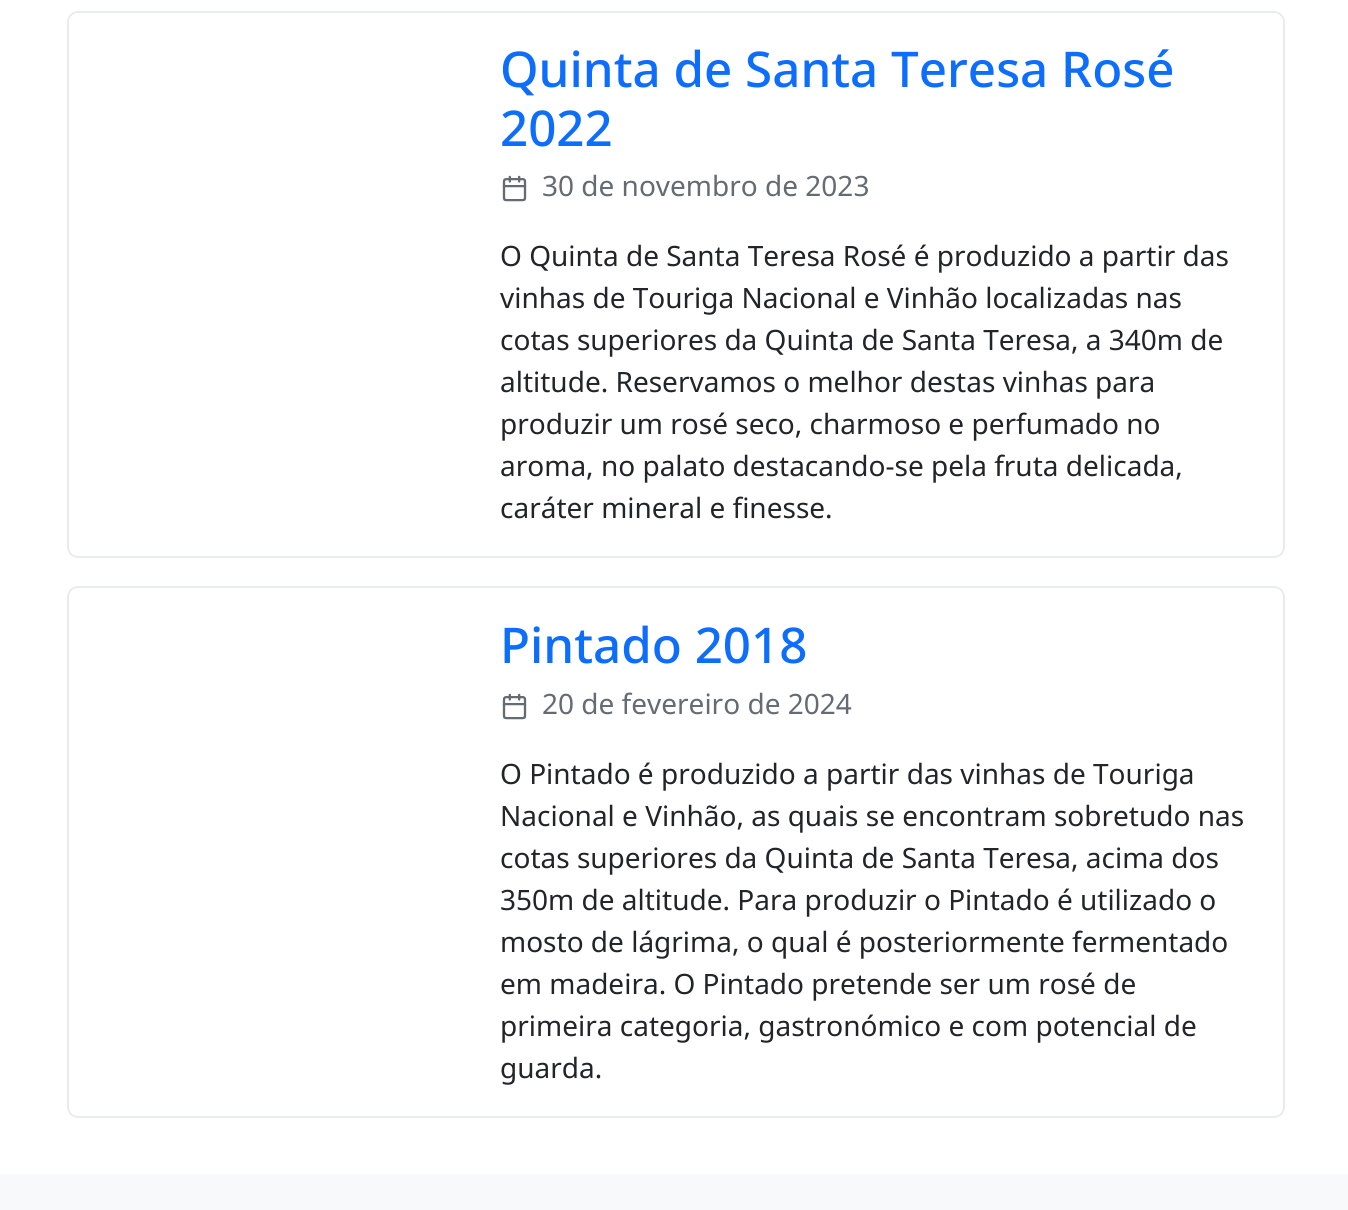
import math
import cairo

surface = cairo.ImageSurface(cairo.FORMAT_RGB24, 1348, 1210)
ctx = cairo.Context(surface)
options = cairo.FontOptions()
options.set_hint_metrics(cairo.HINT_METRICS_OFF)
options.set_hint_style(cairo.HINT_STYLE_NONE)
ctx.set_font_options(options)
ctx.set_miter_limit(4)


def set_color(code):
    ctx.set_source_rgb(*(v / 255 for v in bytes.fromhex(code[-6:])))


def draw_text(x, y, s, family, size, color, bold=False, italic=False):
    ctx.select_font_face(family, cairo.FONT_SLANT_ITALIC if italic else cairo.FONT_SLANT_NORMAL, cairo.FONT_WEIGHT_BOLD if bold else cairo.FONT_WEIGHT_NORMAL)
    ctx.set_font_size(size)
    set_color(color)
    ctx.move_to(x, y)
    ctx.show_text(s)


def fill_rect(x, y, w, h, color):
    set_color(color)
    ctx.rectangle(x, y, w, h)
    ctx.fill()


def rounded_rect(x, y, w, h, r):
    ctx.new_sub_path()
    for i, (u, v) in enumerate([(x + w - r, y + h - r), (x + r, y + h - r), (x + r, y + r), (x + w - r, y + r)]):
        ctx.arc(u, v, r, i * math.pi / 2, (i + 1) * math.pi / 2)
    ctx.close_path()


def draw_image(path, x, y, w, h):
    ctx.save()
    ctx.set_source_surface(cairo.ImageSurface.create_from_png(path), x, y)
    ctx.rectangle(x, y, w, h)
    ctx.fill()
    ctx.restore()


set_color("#ffffff")
ctx.paint()
rounded_rect(68, 12, 1216, 545, 10)
set_color("#e9ecef")
ctx.stroke()
draw_text(500, 87, "Quinta de Santa Teresa Rosé", "Noto Sans Medium", 49.25, "#0d6efd")
draw_text(500, 146, "2022", "Noto Sans Medium", 49.25, "#0d6efd")
draw_image("assets/img1.png", 502, 175, 25, 27)
draw_text(542, 196, "30 de novembro de 2023", "Noto Sans", 28, "#646b72")
draw_text(500, 266, "O Quinta de Santa Teresa Rosé é produzido a partir das", "Noto Sans", 28, "#212529")
draw_text(500, 308, "vinhas de Touriga Nacional e Vinhão localizadas nas", "Noto Sans", 28, "#212529")
draw_text(500, 350, "cotas superiores da Quinta de Santa Teresa, a 340m de", "Noto Sans", 28, "#212529")
draw_text(500, 392, "altitude. Reservamos o melhor destas vinhas para", "Noto Sans", 28, "#212529")
draw_text(500, 434, "produzir um rosé seco, charmoso e perfumado no", "Noto Sans", 28, "#212529")
draw_text(500, 476, "aroma, no palato destacando-se pela fruta delicada,", "Noto Sans", 28, "#212529")
draw_text(500, 518, "caráter mineral e finesse.", "Noto Sans", 28, "#212529")
rounded_rect(68, 587, 1216, 530, 10)
set_color("#e9ecef")
ctx.stroke()
draw_text(500, 663, "Pintado 2018", "Noto Sans Medium", 49.25, "#0d6efd")
draw_image("assets/img1.png", 502, 693, 25, 27)
draw_text(542, 714, "20 de fevereiro de 2024", "Noto Sans", 28, "#646b72")
draw_text(500, 784, "O Pintado é produzido a partir das vinhas de Touriga", "Noto Sans", 28, "#212529")
draw_text(500, 826, "Nacional e Vinhão, as quais se encontram sobretudo nas", "Noto Sans", 28, "#212529")
draw_text(500, 868, "cotas superiores da Quinta de Santa Teresa, acima dos", "Noto Sans", 28, "#212529")
draw_text(500, 910, "350m de altitude. Para produzir o Pintado é utilizado o", "Noto Sans", 28, "#212529")
draw_text(500, 952, "mosto de lágrima, o qual é posteriormente fermentado", "Noto Sans", 28, "#212529")
draw_text(500, 994, "em madeira. O Pintado pretende ser um rosé de", "Noto Sans", 28, "#212529")
draw_text(500, 1036, "primeira categoria, gastronómico e com potencial de", "Noto Sans", 28, "#212529")
draw_text(500, 1078, "guarda.", "Noto Sans", 28, "#212529")
fill_rect(0, 1174, 1348, 36, "#f8f9fa")
surface.write_to_png("output.png")
